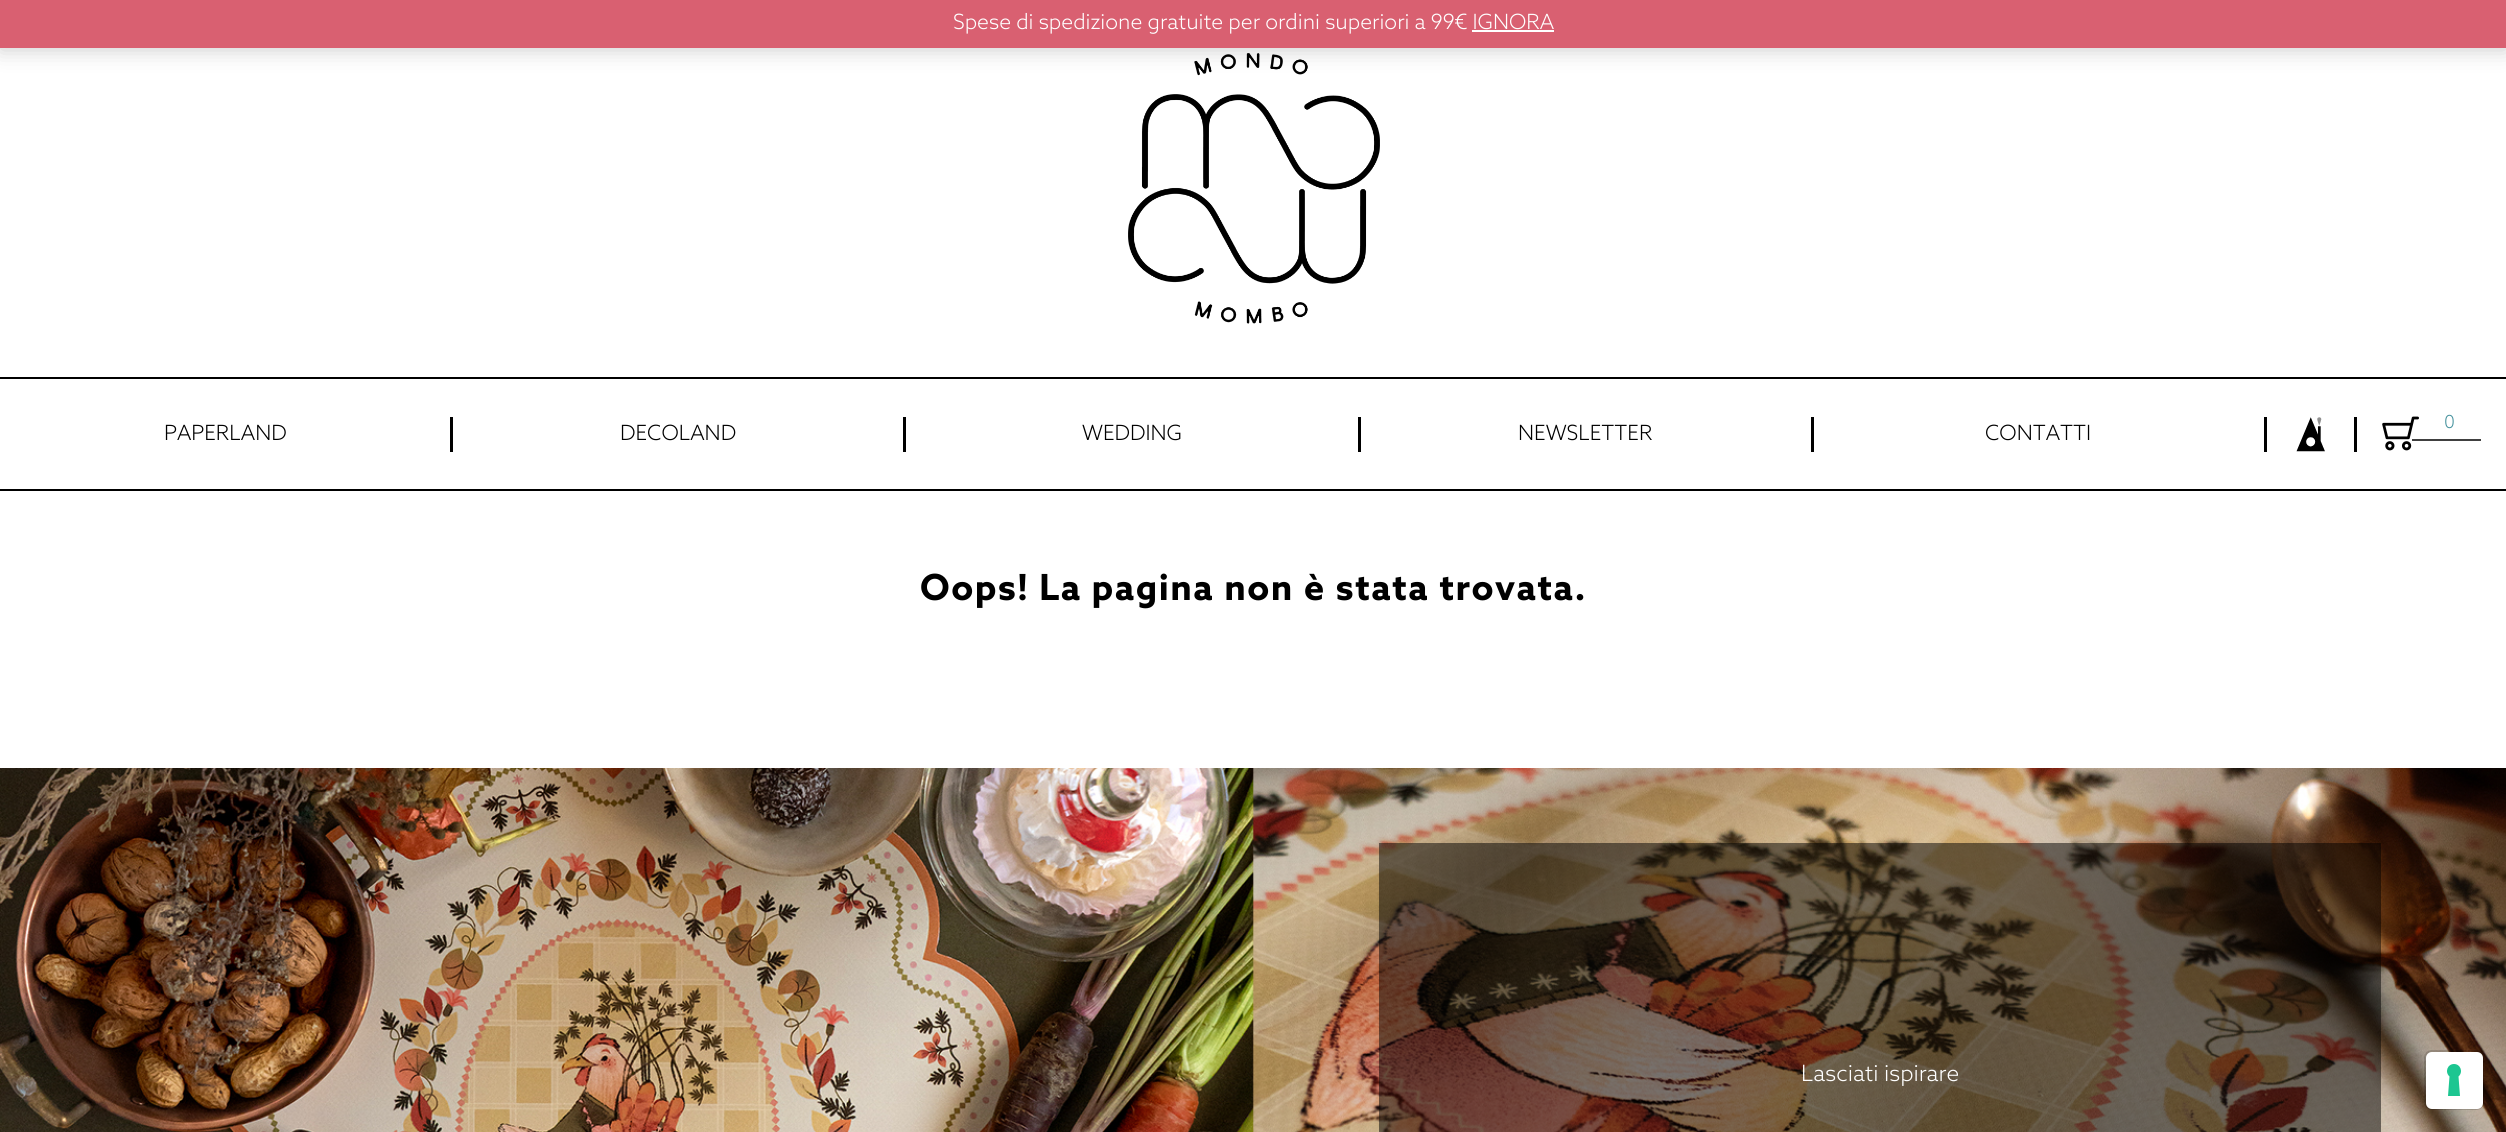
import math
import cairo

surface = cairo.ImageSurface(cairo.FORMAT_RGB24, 2506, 1132)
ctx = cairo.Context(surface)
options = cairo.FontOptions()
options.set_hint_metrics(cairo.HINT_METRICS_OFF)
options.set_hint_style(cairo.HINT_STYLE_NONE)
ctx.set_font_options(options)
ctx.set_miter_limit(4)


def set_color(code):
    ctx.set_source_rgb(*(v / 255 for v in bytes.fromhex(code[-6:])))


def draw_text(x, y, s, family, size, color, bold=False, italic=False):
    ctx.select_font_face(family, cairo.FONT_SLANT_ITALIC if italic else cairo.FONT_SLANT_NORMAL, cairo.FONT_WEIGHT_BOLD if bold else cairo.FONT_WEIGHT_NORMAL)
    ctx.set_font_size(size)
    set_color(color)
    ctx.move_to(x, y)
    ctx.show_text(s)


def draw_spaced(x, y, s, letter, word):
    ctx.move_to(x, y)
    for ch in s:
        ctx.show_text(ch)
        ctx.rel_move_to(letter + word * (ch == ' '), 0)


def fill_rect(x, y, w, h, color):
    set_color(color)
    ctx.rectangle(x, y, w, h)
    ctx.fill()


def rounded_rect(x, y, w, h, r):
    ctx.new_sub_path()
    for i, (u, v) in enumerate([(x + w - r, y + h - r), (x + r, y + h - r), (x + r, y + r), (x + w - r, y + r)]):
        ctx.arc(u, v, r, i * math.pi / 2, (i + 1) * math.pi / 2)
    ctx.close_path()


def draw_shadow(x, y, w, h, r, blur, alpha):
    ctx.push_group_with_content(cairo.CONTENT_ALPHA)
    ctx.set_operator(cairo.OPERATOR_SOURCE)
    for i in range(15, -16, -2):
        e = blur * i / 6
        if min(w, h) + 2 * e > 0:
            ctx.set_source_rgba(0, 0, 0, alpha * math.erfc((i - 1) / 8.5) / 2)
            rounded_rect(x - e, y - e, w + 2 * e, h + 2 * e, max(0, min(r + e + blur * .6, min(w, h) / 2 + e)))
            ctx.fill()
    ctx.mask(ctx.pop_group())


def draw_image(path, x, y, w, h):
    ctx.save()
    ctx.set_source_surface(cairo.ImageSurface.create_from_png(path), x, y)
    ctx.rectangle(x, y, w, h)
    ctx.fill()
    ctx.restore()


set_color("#ffffff")
ctx.paint()
draw_image("assets/img1.png", 1128, 53, 252, 271)
set_color("#000000")
draw_shadow(0, 2, 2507, 48, 0, 10.5, 0.2)
fill_rect(0, 0, 2506, 48, "#d96071")
draw_text(953, 29, "Spese di spedizione gratuite per ordini superiori a 99€ IGNORA", "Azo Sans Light", 21, "#ffffff")
fill_rect(1472, 30, 82, 2, "#ffffff")
fill_rect(0, 377, 2506, 2, "#000000")
fill_rect(0, 489, 2506, 2, "#000000")
draw_image("assets/img2.png", 2382, 416, 99, 35)
draw_text(2444, 428, "0", "Azo Sans Light", 18, "#46929d")
fill_rect(450, 417, 3, 35, "#000000")
draw_text(164, 440, "PAPERLAND", "Azo Sans Light", 21, "#000000")
fill_rect(903, 417, 3, 35, "#000000")
draw_text(620, 440, "DECOLAND", "Azo Sans Light", 21, "#000000")
fill_rect(1358, 417, 3, 35, "#000000")
draw_text(1082, 440, "WEDDING", "Azo Sans Light", 21, "#000000")
fill_rect(1811, 417, 3, 35, "#000000")
draw_text(1518, 440, "NEWSLETTER", "Azo Sans Light", 21, "#000000")
fill_rect(2264, 417, 3, 35, "#000000")
draw_text(1985, 440, "CONTATTI", "Azo Sans Light", 21, "#000000")
draw_image("assets/img3.png", 2296, 417, 29, 35)
fill_rect(2354, 417, 3, 35, "#000000")
ctx.select_font_face("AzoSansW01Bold", cairo.FONT_SLANT_NORMAL, cairo.FONT_WEIGHT_BOLD)
ctx.set_font_size(36)
draw_spaced(920, 600, "Oops! La pagina non è stata trovata.", 1.5, 0)
draw_image("assets/img4.png", 0, 768, 2506, 364)
ctx.set_source_rgba(0, 0, 0, 0.5)
ctx.rectangle(1379, 843, 1002, 289)
ctx.fill()
draw_text(1801, 1081, "Lasciati ispirare", "Azo Sans Light", 22.5, "#ffffff")
rounded_rect(2425, 1051, 58, 58, 7)
ctx.set_source_rgba(0, 0, 0, 0.15)
ctx.stroke()
set_color("#ffffff")
rounded_rect(2426, 1052, 57, 57, 6)
ctx.fill()
set_color("#1cc691")
ctx.set_fill_rule(cairo.FILL_RULE_EVEN_ODD)
ctx.new_path()
ctx.move_to(2454, 1064)
ctx.curve_to(2460.5, 1064, 2463.5, 1072, 2458.5, 1076.5)
ctx.line_to(2460, 1096)
ctx.line_to(2448, 1096)
ctx.line_to(2449.5, 1076.5)
ctx.curve_to(2444.5, 1072, 2447.5, 1064, 2454, 1064)
ctx.close_path()
ctx.fill()
surface.write_to_png("output.png")
